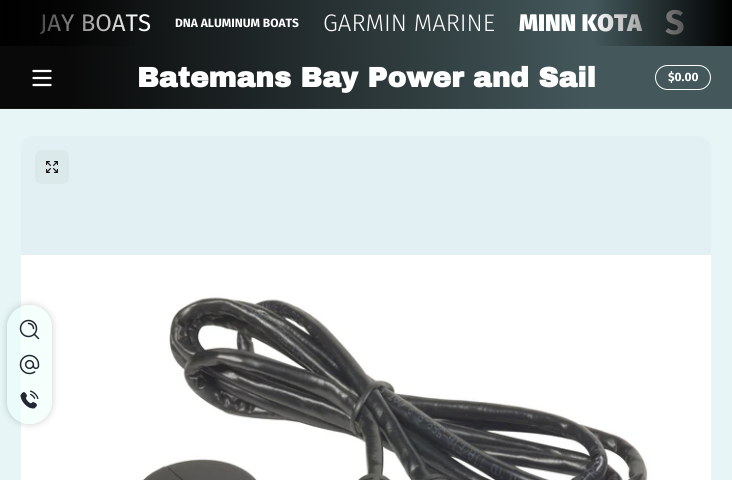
import math
import cairo

surface = cairo.ImageSurface(cairo.FORMAT_RGB24, 732, 480)
ctx = cairo.Context(surface)
options = cairo.FontOptions()
options.set_hint_metrics(cairo.HINT_METRICS_OFF)
options.set_hint_style(cairo.HINT_STYLE_NONE)
ctx.set_font_options(options)
ctx.set_miter_limit(4)


def set_color(code):
    ctx.set_source_rgb(*(v / 255 for v in bytes.fromhex(code[-6:])))


def draw_text(x, y, s, family, size, color, bold=False, italic=False):
    ctx.select_font_face(family, cairo.FONT_SLANT_ITALIC if italic else cairo.FONT_SLANT_NORMAL, cairo.FONT_WEIGHT_BOLD if bold else cairo.FONT_WEIGHT_NORMAL)
    ctx.set_font_size(size)
    set_color(color)
    ctx.move_to(x, y)
    ctx.show_text(s)


def rounded_rect(x, y, w, h, r):
    ctx.new_sub_path()
    for i, (u, v) in enumerate([(x + w - r, y + h - r), (x + r, y + h - r), (x + r, y + r), (x + w - r, y + r)]):
        ctx.arc(u, v, r, i * math.pi / 2, (i + 1) * math.pi / 2)
    ctx.close_path()


def draw_shadow(x, y, w, h, r, blur, alpha):
    ctx.push_group_with_content(cairo.CONTENT_ALPHA)
    ctx.set_operator(cairo.OPERATOR_SOURCE)
    for i in range(15, -16, -2):
        e = blur * i / 6
        if min(w, h) + 2 * e > 0:
            ctx.set_source_rgba(0, 0, 0, alpha * math.erfc((i - 1) / 8.5) / 2)
            rounded_rect(x - e, y - e, w + 2 * e, h + 2 * e, max(0, min(r + e + blur * .6, min(w, h) / 2 + e)))
            ctx.fill()
    ctx.mask(ctx.pop_group())


def draw_image(path, x, y, w, h):
    ctx.save()
    ctx.set_source_surface(cairo.ImageSurface.create_from_png(path), x, y)
    ctx.rectangle(x, y, w, h)
    ctx.fill()
    ctx.restore()


set_color("#e7f5f7")
ctx.paint()
gradient = cairo.LinearGradient(-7.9, 253, 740, 227)
gradient.add_color_stop_rgba(0.11, 0.035, 0.035, 0.035, 1)
gradient.add_color_stop_rgba(0.81, 0.267, 0.345, 0.357, 1)
ctx.set_source(gradient)
ctx.rectangle(1, 0, 730, 46)
ctx.fill()
draw_text(40, 31, "JAY BOATS", "Fira Sans", 24, "#ffffff")
gradient = cairo.LinearGradient(0, 23, 140, 23)
gradient.add_color_stop_rgba(0, 0, 0, 0, 1)
gradient.add_color_stop_rgba(1, 0, 0, 0, 0)
ctx.set_source(gradient)
ctx.rectangle(0, 0, 137, 46)
ctx.fill()
draw_text(519, 31, "MINN KOTA", "Fira Sans Black", 24, "#ffffff")
draw_text(665, 34, "S", "Fira Sans", 34, "#ffffff", bold=True)
gradient = cairo.LinearGradient(732, 23, 592, 23)
gradient.add_color_stop_rgba(0, 0, 0, 0, 1)
gradient.add_color_stop_rgba(1, 0, 0, 0, 0)
ctx.set_source(gradient)
ctx.rectangle(595, 0, 137, 46)
ctx.fill()
draw_text(175, 27, "DNA ALUMINUM BOATS", "Fira Sans", 12, "#ffffff", bold=True)
draw_text(323, 31, "GARMIN MARINE", "Fira Sans Light", 24, "#ffffff")
gradient = cairo.LinearGradient(-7.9, 253, 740, 227)
gradient.add_color_stop_rgba(0.11, 0.035, 0.035, 0.035, 1)
gradient.add_color_stop_rgba(0.81, 0.267, 0.345, 0.357, 1)
ctx.set_source(gradient)
ctx.rectangle(0, 46, 732, 62)
ctx.fill()
gradient = cairo.LinearGradient(-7.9, 253, 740, 227)
gradient.add_color_stop_rgba(0.11, 0.082, 0.082, 0.082, 1)
gradient.add_color_stop_rgba(0.81, 0.302, 0.376, 0.388, 1)
ctx.set_source(gradient)
ctx.rectangle(0, 108, 732, 1)
ctx.fill()
ctx.new_path()
ctx.move_to(33.5, 71)
ctx.line_to(50.5, 71)
ctx.move_to(33.5, 78)
ctx.line_to(50.5, 78)
ctx.move_to(33.5, 85)
ctx.line_to(50.5, 85)
set_color("#ffffff")
ctx.set_line_width(2.3)
ctx.set_line_cap(cairo.LINE_CAP_ROUND)
ctx.stroke()
draw_text(137, 87, "Batemans Bay Power and Sail", "Archivo Black", 28, "#ffffff", bold=True)
rounded_rect(655.5, 65.5, 55, 24, 12)
ctx.set_line_width(1)
ctx.set_line_cap(cairo.LINE_CAP_BUTT)
ctx.stroke()
draw_text(668, 81, "$0.00", "Fira Sans", 12, "#ffffff", bold=True)
set_color("#e3f0f3")
rounded_rect(21, 136, 690, 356, 12)
ctx.fill()
set_color("#e7f5f7")
rounded_rect(35, 150, 34, 34, 7)
ctx.fill()
draw_image("assets/img1.png", 46, 161, 12, 12)
ctx.set_source_rgba(0.071, 0.071, 0.071, 0.05)
ctx.new_path()
ctx.move_to(42, 150)
ctx.line_to(62, 150)
ctx.curve_to(66, 150, 69, 153, 69, 157)
ctx.line_to(69, 177)
ctx.curve_to(69, 181, 66, 184, 62, 184)
ctx.line_to(42, 184)
ctx.curve_to(38, 184, 35, 181, 35, 177)
ctx.line_to(35, 157)
ctx.curve_to(35, 153, 38, 150, 42, 150)
ctx.close_path()
ctx.fill()
draw_image("assets/img2.png", 21, 255, 690, 225)
ctx.save()
ctx.set_fill_rule(cairo.FILL_RULE_EVEN_ODD)
ctx.new_path()
ctx.move_to(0, 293)
ctx.line_to(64, 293)
ctx.line_to(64, 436)
ctx.line_to(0, 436)
ctx.close_path()
ctx.move_to(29.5, 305)
ctx.curve_to(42, 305, 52, 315, 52, 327.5)
ctx.line_to(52, 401.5)
ctx.curve_to(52, 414, 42, 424, 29.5, 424)
ctx.curve_to(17, 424, 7, 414, 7, 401.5)
ctx.line_to(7, 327.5)
ctx.curve_to(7, 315, 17, 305, 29.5, 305)
ctx.close_path()
ctx.clip()
set_color("#000000")
draw_shadow(7, 305, 45, 119, 22.5, 3.5, 0.2)
ctx.restore()
ctx.set_source_rgba(0.937, 1, 0.98, 0.6)
rounded_rect(7, 305, 45, 119, 22.5)
ctx.fill()
draw_image("assets/img3.png", 19, 319, 21, 21)
draw_image("assets/img4.png", 19, 354, 21, 21)
draw_image("assets/img5.png", 20, 390, 19, 19)
surface.write_to_png("output.png")
